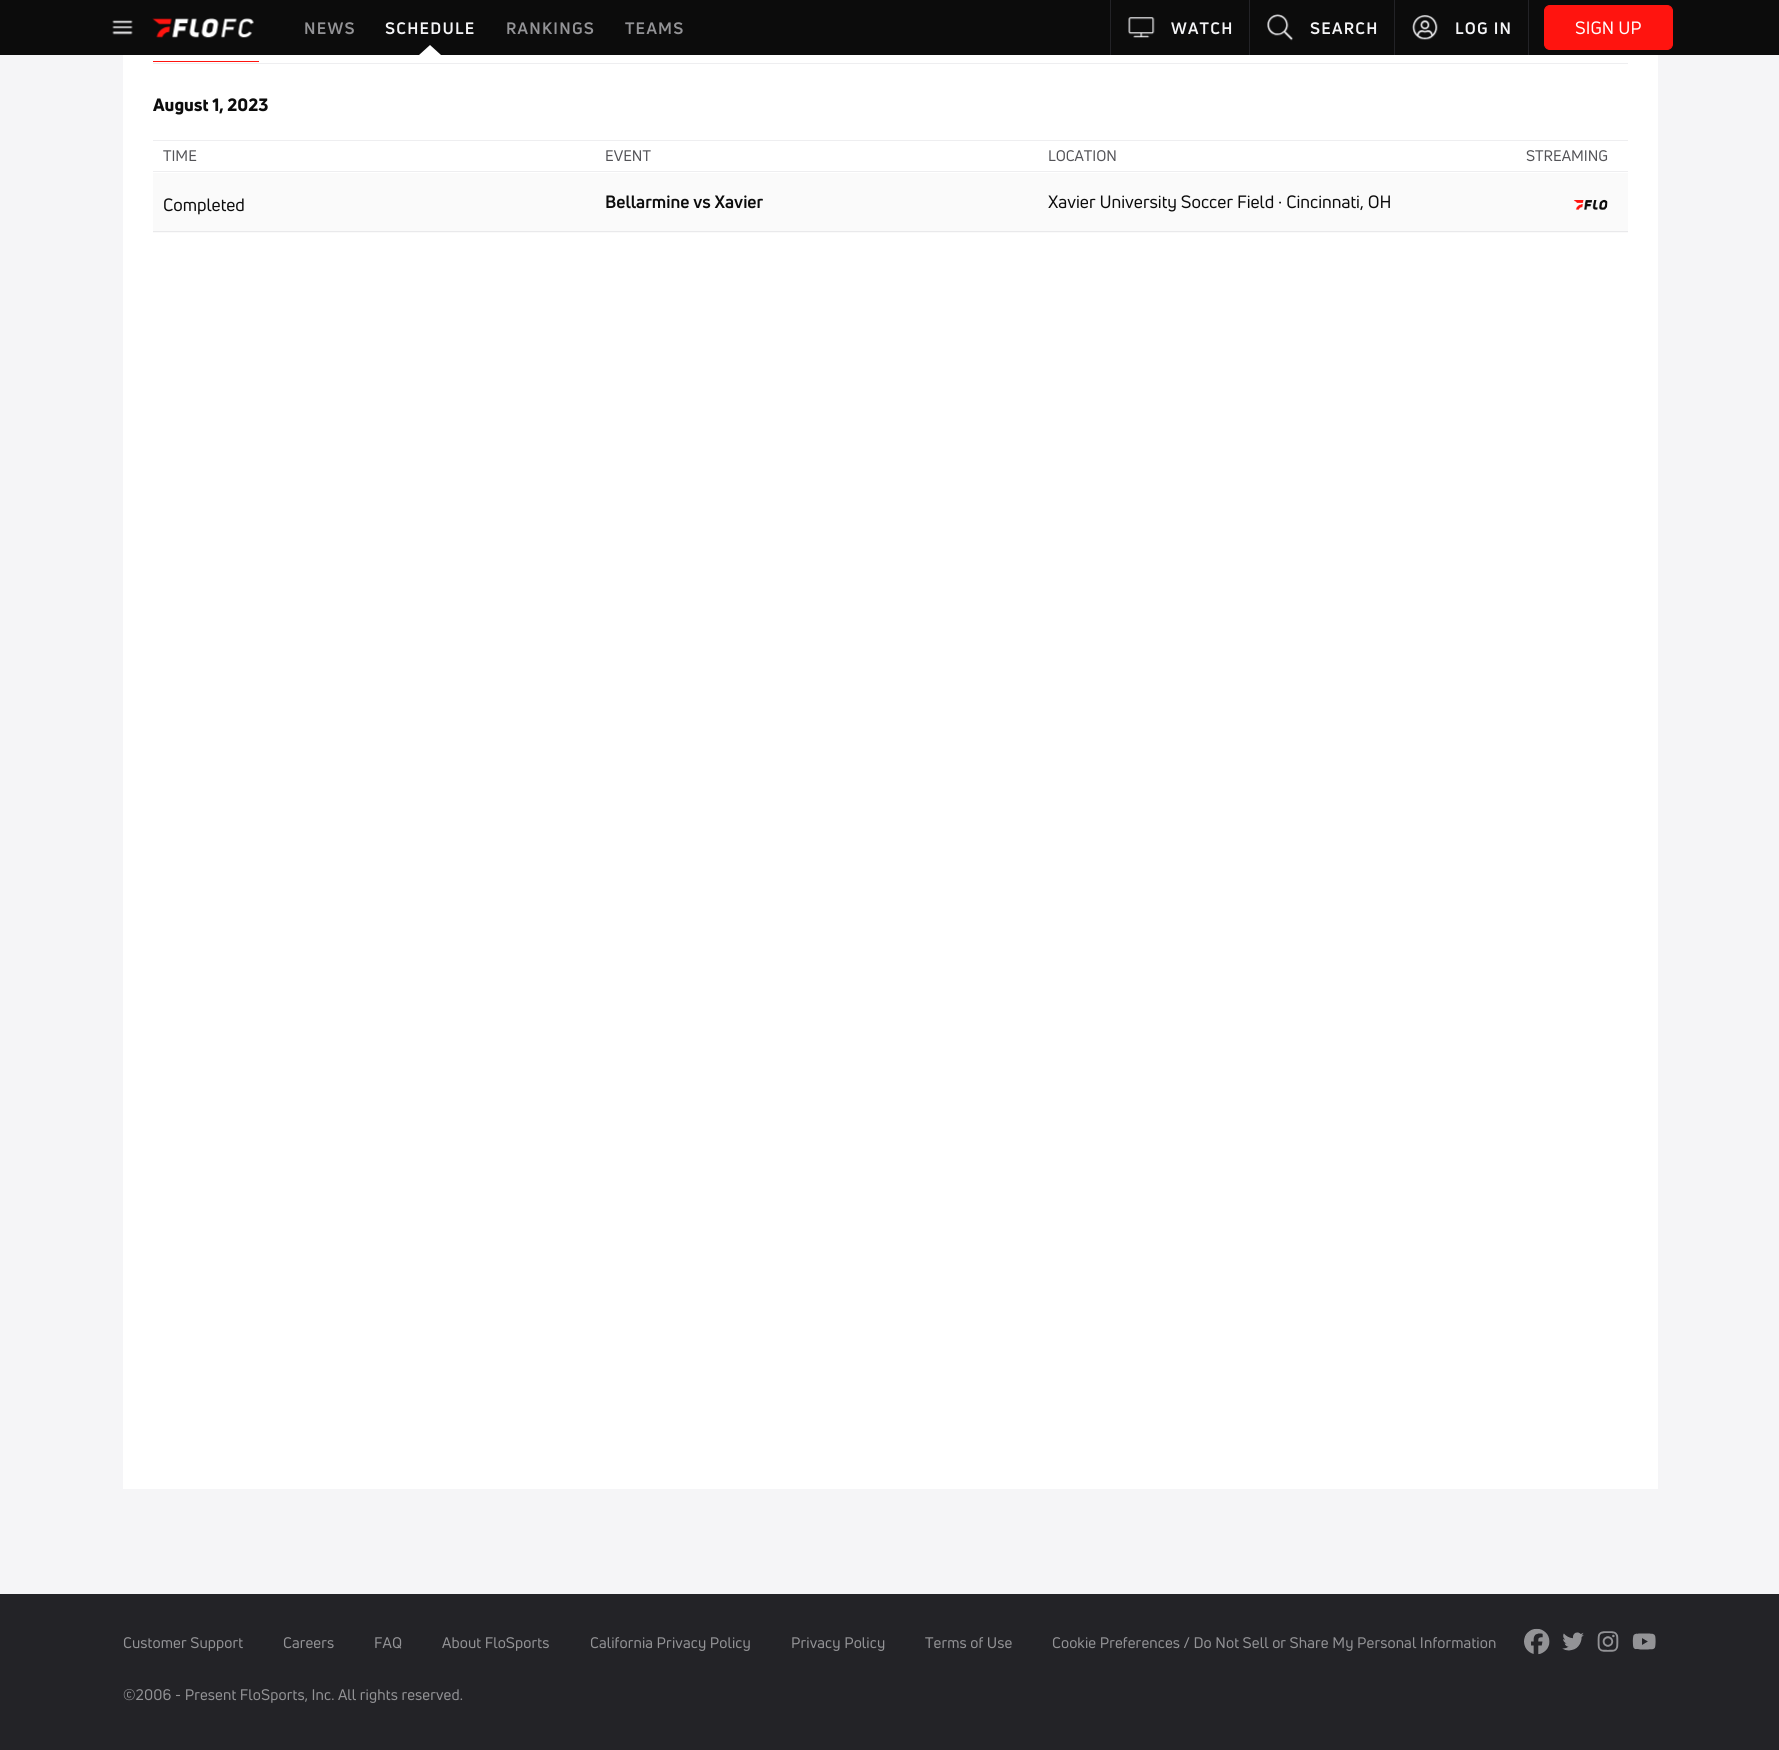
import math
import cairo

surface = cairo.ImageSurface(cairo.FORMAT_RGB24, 1779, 1750)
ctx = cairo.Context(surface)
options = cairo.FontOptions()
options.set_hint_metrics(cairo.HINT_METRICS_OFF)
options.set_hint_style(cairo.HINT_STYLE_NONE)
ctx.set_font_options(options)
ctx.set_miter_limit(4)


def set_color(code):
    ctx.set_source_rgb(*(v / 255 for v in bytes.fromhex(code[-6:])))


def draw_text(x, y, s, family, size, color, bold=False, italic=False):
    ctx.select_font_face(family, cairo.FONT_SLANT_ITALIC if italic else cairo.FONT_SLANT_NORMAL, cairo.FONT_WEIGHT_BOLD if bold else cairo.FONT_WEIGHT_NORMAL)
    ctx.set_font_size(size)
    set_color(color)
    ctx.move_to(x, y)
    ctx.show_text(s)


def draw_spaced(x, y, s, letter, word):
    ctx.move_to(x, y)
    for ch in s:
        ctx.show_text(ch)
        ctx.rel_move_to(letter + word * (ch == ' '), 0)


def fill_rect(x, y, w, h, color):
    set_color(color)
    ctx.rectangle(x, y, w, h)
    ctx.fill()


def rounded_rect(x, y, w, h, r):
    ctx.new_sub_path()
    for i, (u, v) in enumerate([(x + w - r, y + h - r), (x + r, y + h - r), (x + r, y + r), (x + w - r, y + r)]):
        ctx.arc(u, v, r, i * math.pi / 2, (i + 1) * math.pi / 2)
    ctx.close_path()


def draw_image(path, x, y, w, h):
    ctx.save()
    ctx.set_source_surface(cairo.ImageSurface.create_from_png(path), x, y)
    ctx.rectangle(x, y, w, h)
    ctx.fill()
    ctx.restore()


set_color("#f5f5f7")
ctx.paint()
fill_rect(0, 0, 1779, 55, "#0c0c0c")
draw_image("assets/img1.png", 112, 20, 21, 15)
draw_image("assets/img2.png", 152, 18, 102, 20)
ctx.select_font_face("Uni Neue", cairo.FONT_SLANT_NORMAL, cairo.FONT_WEIGHT_BOLD)
ctx.set_font_size(16.25)
set_color("#939396")
draw_spaced(304, 34, "NEWS", 1.25, 0)
set_color("#f5f5f7")
draw_spaced(385, 34, "SCHEDULE", 1.25, 0)
set_color("#ffffff")
ctx.new_path()
ctx.move_to(441, 55)
ctx.line_to(419, 55)
ctx.line_to(430, 45)
ctx.close_path()
ctx.fill()
set_color("#939396")
draw_spaced(506, 34, "RANKINGS", 1.25, 0)
draw_spaced(625, 34, "TEAMS", 1.25, 0)
fill_rect(1110, 0, 1, 55, "#232327")
draw_image("assets/img3.png", 1128, 17, 27, 21)
set_color("#f5f5f7")
draw_spaced(1171, 34, "WATCH", 1.25, 0)
fill_rect(1249, 0, 1, 55, "#232327")
draw_image("assets/img4.png", 1267, 14, 26, 27)
set_color("#f5f5f7")
draw_spaced(1310, 34, "SEARCH", 1.25, 0)
fill_rect(1528, 0, 1, 55, "#232327")
fill_rect(1394, 0, 1, 55, "#232327")
draw_image("assets/img5.png", 1412, 15, 26, 25)
set_color("#f5f5f7")
draw_spaced(1455, 34, "LOG IN", 1.25, 0)
set_color("#ff140f")
rounded_rect(1544.5, 5.5, 128, 44, 5.5)
ctx.fill_preserve()
ctx.set_line_width(1)
ctx.stroke()
ctx.select_font_face("Uni Neue")
ctx.set_font_size(17.5)
set_color("#ffffff")
draw_spaced(1575, 34, "SIGN UP", 0.12, 0)
fill_rect(123, 55, 1535, 1434, "#ffffff")
fill_rect(153, 63, 1475, 1, "#eeeef0")
fill_rect(153, 61, 106, 1, "#ff140f")
fill_rect(153, 173, 1475, 60, "#fafafa")
draw_text(153, 111, "August 1, 2023", "Uni Neue Black", 17.5, "#0c0c0c")
fill_rect(153, 140, 1475, 1, "#eeeef0")
fill_rect(153, 231, 1475, 1, "#e9e9eb")
draw_text(163, 161, "TIME", "Uni Neue", 15, "#535357")
draw_text(605, 161, "EVENT", "Uni Neue", 15, "#535357")
draw_text(1048, 161, "LOCATION", "Uni Neue", 15, "#535357")
draw_text(1526, 161, "STREAMING", "Uni Neue", 15, "#535357")
fill_rect(153, 171, 1475, 1, "#eeeef0")
draw_text(163, 211, "Completed", "Uni Neue", 17.5, "#0c0c0c")
draw_text(605, 208, "Bellarmine vs Xavier", "Uni Neue", 17.5, "#0c0c0c", bold=True)
draw_text(1048, 208, "Xavier University Soccer Field · Cincinnati, OH", "Uni Neue", 17.5, "#0c0c0c")
draw_image("assets/img6.png", 1573, 199, 35, 11)
fill_rect(0, 1594, 1779, 156, "#232327")
ctx.set_font_size(15)
set_color("#939396")
draw_spaced(123, 1648, "Customer Support", 0.12, 0)
draw_spaced(283, 1648, "Careers", 0.12, 0)
draw_spaced(374, 1648, "FAQ", 0.12, 0)
draw_spaced(442, 1648, "About FloSports", 0.12, 0)
draw_spaced(590, 1648, "California Privacy Policy", 0.12, 0)
draw_spaced(791, 1648, "Privacy Policy", 0.12, 0)
draw_spaced(925, 1648, "Terms of Use", 0.12, 0)
draw_spaced(1052, 1648, "Cookie Preferences / Do Not Sell or Share My Personal Information", 0.12, 0)
draw_image("assets/img7.png", 1524, 1628, 26, 27)
draw_image("assets/img8.png", 1562, 1632, 22, 19)
draw_image("assets/img9.png", 1597, 1631, 22, 21)
draw_image("assets/img10.png", 1632, 1633, 24, 17)
draw_spaced(123, 1700, "©2006 - Present FloSports, Inc. All rights reserved.", 0.12, 0)
surface.write_to_png("output.png")
